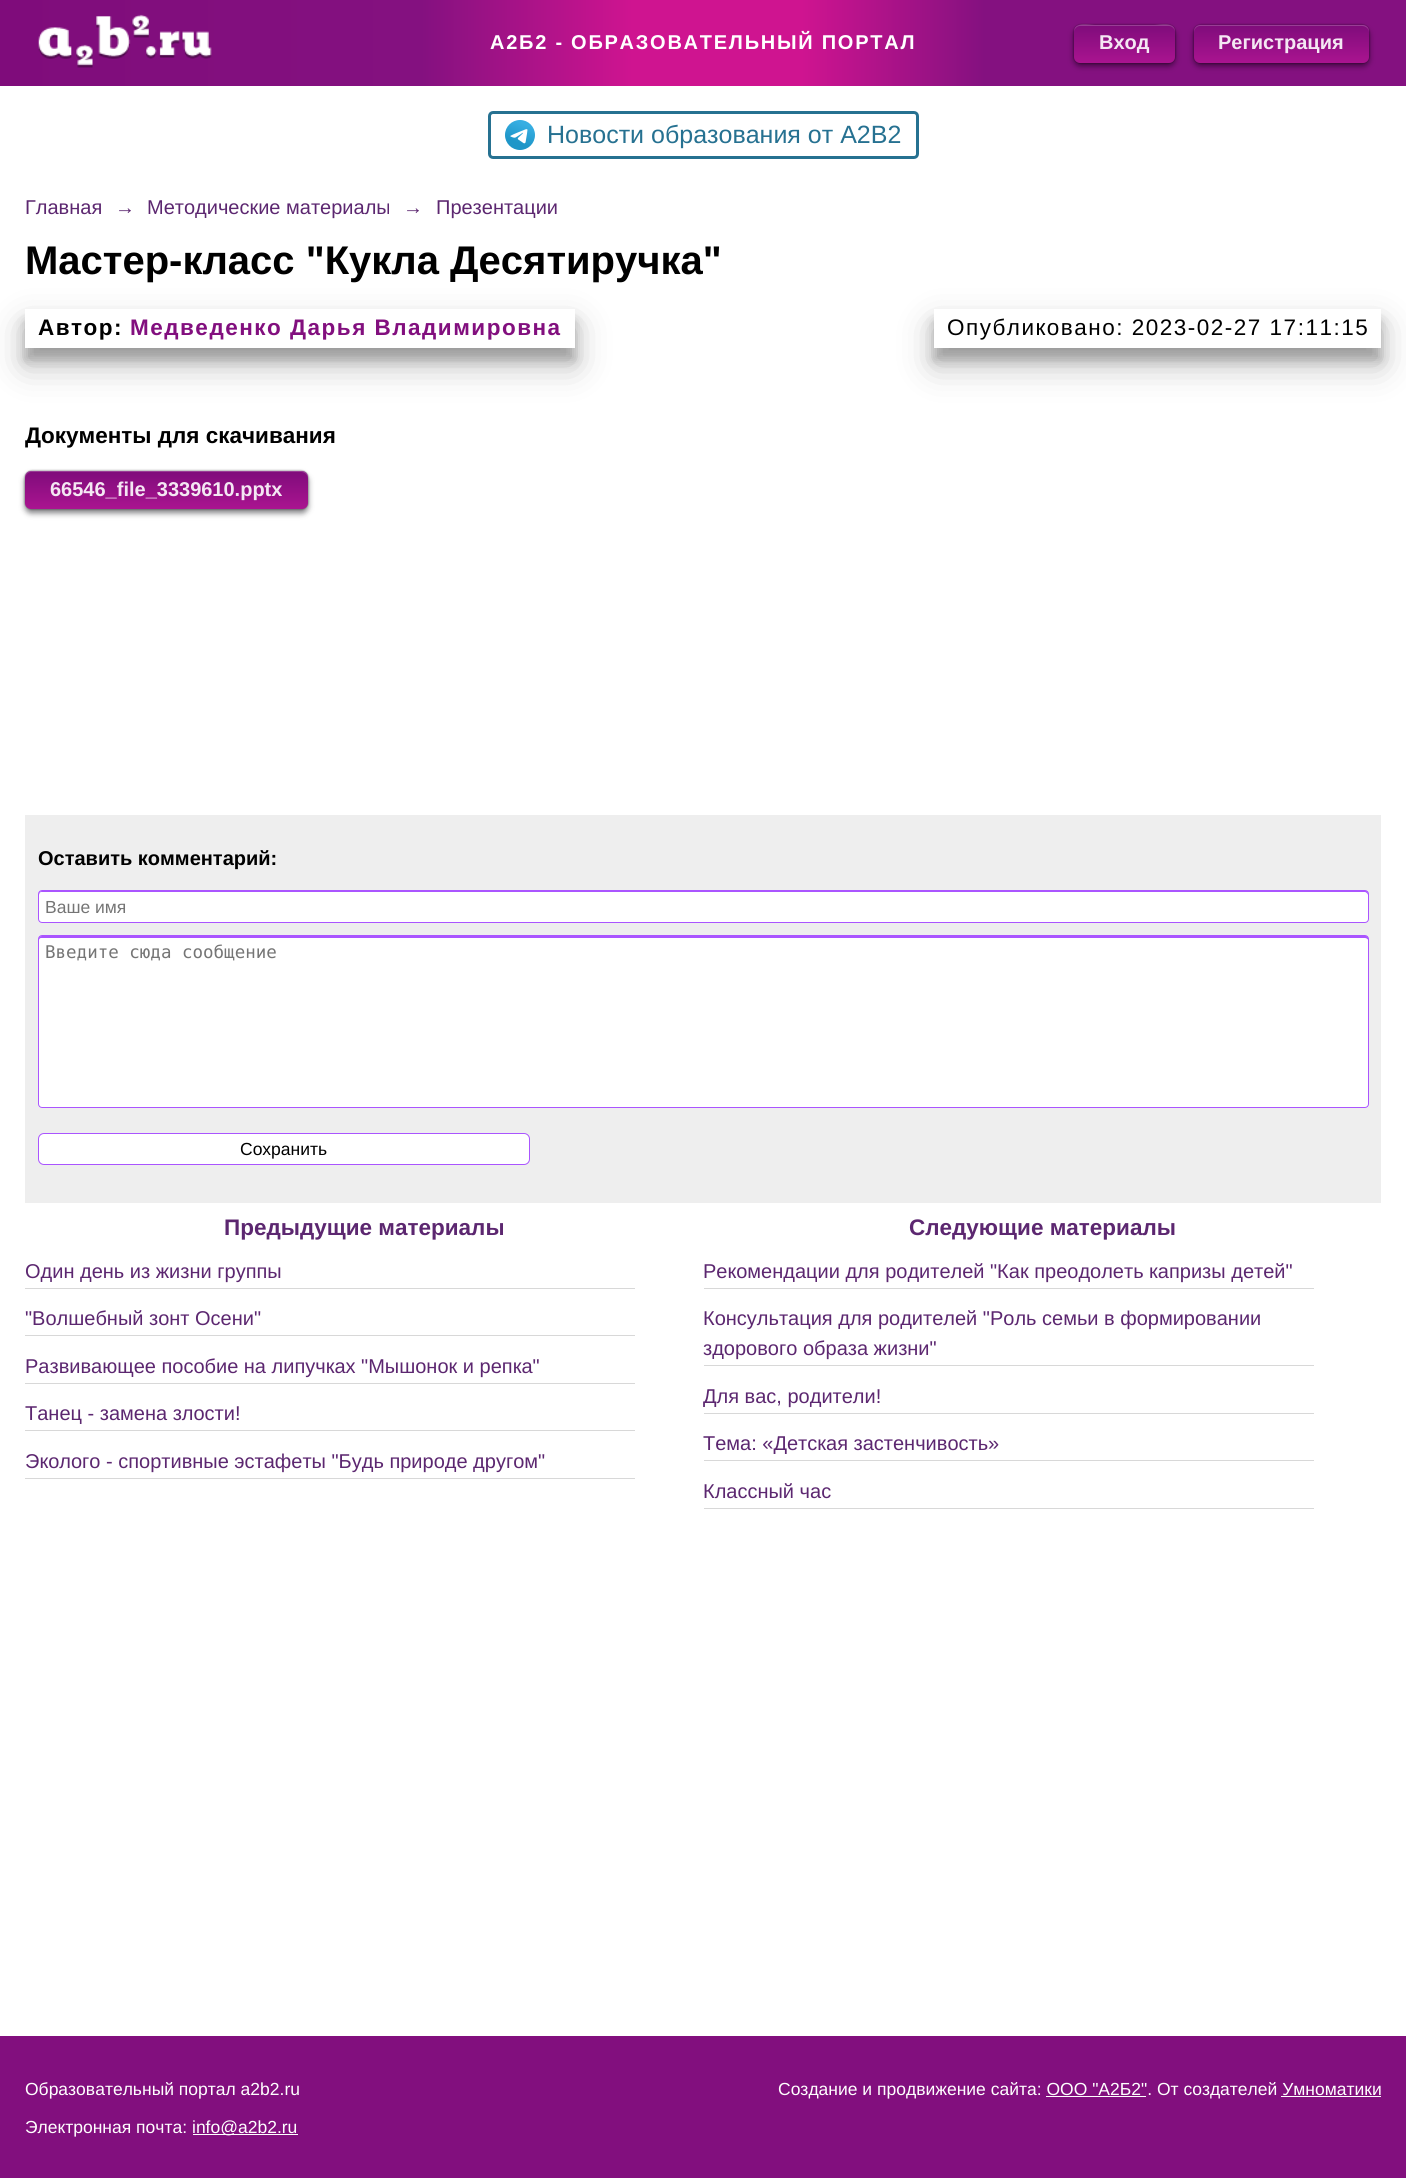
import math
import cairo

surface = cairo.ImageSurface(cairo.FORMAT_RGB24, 1406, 2178)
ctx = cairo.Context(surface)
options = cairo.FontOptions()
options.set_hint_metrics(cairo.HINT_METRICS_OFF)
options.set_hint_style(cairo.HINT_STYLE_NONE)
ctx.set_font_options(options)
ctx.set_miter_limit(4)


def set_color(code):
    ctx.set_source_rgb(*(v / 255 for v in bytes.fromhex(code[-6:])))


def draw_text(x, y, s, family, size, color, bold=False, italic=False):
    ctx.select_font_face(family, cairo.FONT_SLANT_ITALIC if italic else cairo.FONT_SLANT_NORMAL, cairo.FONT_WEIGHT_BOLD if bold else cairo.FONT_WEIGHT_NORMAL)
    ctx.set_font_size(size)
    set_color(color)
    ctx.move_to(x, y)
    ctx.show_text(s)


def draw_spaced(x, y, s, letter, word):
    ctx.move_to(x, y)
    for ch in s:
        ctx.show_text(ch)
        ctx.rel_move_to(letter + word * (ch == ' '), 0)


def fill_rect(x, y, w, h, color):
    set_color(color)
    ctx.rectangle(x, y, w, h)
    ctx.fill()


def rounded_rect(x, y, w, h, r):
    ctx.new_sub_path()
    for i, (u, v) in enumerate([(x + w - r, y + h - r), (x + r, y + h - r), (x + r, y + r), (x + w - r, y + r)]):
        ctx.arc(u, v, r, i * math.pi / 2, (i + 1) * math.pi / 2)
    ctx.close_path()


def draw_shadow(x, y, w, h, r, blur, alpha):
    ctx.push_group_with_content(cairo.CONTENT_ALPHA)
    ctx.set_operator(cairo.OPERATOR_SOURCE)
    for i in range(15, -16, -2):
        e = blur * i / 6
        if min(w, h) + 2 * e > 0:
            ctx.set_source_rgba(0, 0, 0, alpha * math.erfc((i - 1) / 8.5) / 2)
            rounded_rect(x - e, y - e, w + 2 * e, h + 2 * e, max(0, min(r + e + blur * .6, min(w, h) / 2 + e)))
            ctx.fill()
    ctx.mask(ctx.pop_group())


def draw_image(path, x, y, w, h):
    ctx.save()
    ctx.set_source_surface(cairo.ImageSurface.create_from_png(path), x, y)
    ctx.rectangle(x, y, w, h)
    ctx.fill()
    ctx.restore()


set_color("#ffffff")
ctx.paint()
gradient = cairo.LinearGradient(0, 43, 1406, 43)
gradient.add_color_stop_rgba(0, 0.506, 0.055, 0.49, 1)
gradient.add_color_stop_rgba(0, 0.498, 0.047, 0.482, 1)
gradient.add_color_stop_rgba(0.3, 0.518, 0.067, 0.502, 1)
gradient.add_color_stop_rgba(0.45, 0.812, 0.078, 0.565, 1)
gradient.add_color_stop_rgba(0.57, 0.812, 0.078, 0.565, 1)
gradient.add_color_stop_rgba(0.7, 0.518, 0.067, 0.502, 1)
gradient.add_color_stop_rgba(1, 0.518, 0.067, 0.502, 1)
ctx.set_source(gradient)
ctx.rectangle(0, 0, 1406, 86)
ctx.fill()
draw_image("assets/img1.png", 38, 14, 174, 54)
ctx.select_font_face("Liberation Sans", cairo.FONT_SLANT_NORMAL, cairo.FONT_WEIGHT_BOLD)
ctx.set_font_size(20)
set_color("#ffffff")
draw_spaced(490, 49, "А2Б2 - ОБРАЗОВАТЕЛЬНЫЙ ПОРТАЛ", 1.75, 0)
set_color("#000106")
draw_shadow(1073, 24, 103, 40, 8, 0.5, 0.2)
draw_shadow(1074, 29, 101, 37, 6, 3, 0.5)
gradient = cairo.LinearGradient(1124, 25, 1124, 63)
gradient.add_color_stop_rgba(0, 0.498, 0.047, 0.482, 1)
gradient.add_color_stop_rgba(1, 0.667, 0.078, 0.565, 1)
ctx.set_source(gradient)
rounded_rect(1074, 25, 101, 38, 6)
ctx.fill()
ctx.set_source_rgba(1, 1, 1, 0.2)
ctx.new_path()
ctx.move_to(1080, 26)
ctx.line_to(1169, 26)
ctx.curve_to(1172, 26, 1175, 29, 1175, 32)
ctx.curve_to(1175, 21, 1160, 25, 1154, 25)
ctx.line_to(1095, 25)
ctx.curve_to(1089, 25, 1074, 21, 1074, 32)
ctx.curve_to(1074, 29, 1077, 26, 1080, 26)
ctx.close_path()
ctx.fill()
draw_text(1099, 49, "Вход", "Liberation Sans", 20, "#f4e7f3", bold=True)
set_color("#000106")
draw_shadow(1193, 24, 177, 40, 8, 0.5, 0.2)
draw_shadow(1194, 29, 175, 37, 6, 3, 0.5)
gradient = cairo.LinearGradient(1281, 25, 1281, 63)
gradient.add_color_stop_rgba(0, 0.498, 0.047, 0.482, 1)
gradient.add_color_stop_rgba(1, 0.667, 0.078, 0.565, 1)
ctx.set_source(gradient)
rounded_rect(1194, 25, 175, 38, 6)
ctx.fill()
ctx.set_source_rgba(1, 1, 1, 0.2)
ctx.new_path()
ctx.move_to(1200, 26)
ctx.line_to(1362, 26)
ctx.curve_to(1366, 26, 1369, 29, 1369, 32)
ctx.line_to(1369, 31)
ctx.curve_to(1369, 28, 1366, 25, 1363, 25)
ctx.line_to(1200, 25)
ctx.curve_to(1197, 25, 1194, 28, 1194, 31)
ctx.line_to(1194, 32)
ctx.curve_to(1194, 29, 1197, 26, 1200, 26)
ctx.close_path()
ctx.fill()
draw_text(1218, 49, "Регистрация", "Liberation Sans", 20, "#f4e7f3", bold=True)
rounded_rect(489.5, 112.5, 428, 45, 3.5)
set_color("#267191")
ctx.set_line_width(3)
ctx.stroke()
draw_image("assets/img2.png", 505, 120, 30, 30)
draw_text(547, 143, "Новости образования от A2B2", "Liberation Sans", 25, "#267191")
draw_text(25, 214, "Главная", "Liberation Sans", 20, "#5c2770")
draw_text(115, 214, "→", "Liberation Sans", 20, "#5c2770")
draw_text(147, 214, "Методические материалы", "Liberation Sans", 20, "#5c2770")
draw_text(403, 214, "→", "Liberation Sans", 20, "#5c2770")
draw_text(436, 214, "Презентации", "Liberation Sans", 20, "#5c2770")
draw_text(25, 274, "Мастер-класс \"Кукла Десятиручка\"", "Liberation Sans", 40, "#000000", bold=True)
ctx.save()
ctx.set_fill_rule(cairo.FILL_RULE_EVEN_ODD)
ctx.new_path()
ctx.move_to(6, 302)
ctx.line_to(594, 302)
ctx.line_to(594, 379)
ctx.line_to(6, 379)
ctx.close_path()
ctx.move_to(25, 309)
ctx.line_to(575, 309)
ctx.line_to(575, 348)
ctx.line_to(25, 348)
ctx.close_path()
ctx.clip()
set_color("#000000")
draw_shadow(25, 321, 550, 39, 0, 6, 0.22)
ctx.restore()
ctx.save()
ctx.set_fill_rule(cairo.FILL_RULE_EVEN_ODD)
ctx.new_path()
ctx.move_to(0, 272)
ctx.line_to(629, 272)
ctx.line_to(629, 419)
ctx.line_to(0, 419)
ctx.close_path()
ctx.move_to(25, 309)
ctx.line_to(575, 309)
ctx.line_to(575, 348)
ctx.line_to(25, 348)
ctx.close_path()
ctx.clip()
set_color("#000000")
draw_shadow(25, 326, 550, 39, 0, 17.5, 0.25)
ctx.restore()
ctx.set_font_size(22.5)
draw_spaced(38, 335, "Автор:", 1.5, 0)
set_color("#820f7e")
draw_spaced(130, 335, "Медведенко Дарья Владимировна", 1.5, 0)
ctx.save()
ctx.set_fill_rule(cairo.FILL_RULE_EVEN_ODD)
ctx.new_path()
ctx.move_to(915, 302)
ctx.line_to(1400, 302)
ctx.line_to(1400, 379)
ctx.line_to(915, 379)
ctx.close_path()
ctx.move_to(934, 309)
ctx.line_to(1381, 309)
ctx.line_to(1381, 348)
ctx.line_to(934, 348)
ctx.close_path()
ctx.clip()
set_color("#000000")
draw_shadow(934, 321, 447, 39, 0, 6, 0.22)
ctx.restore()
ctx.save()
ctx.set_fill_rule(cairo.FILL_RULE_EVEN_ODD)
ctx.new_path()
ctx.move_to(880, 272)
ctx.line_to(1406, 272)
ctx.line_to(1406, 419)
ctx.line_to(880, 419)
ctx.close_path()
ctx.move_to(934, 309)
ctx.line_to(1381, 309)
ctx.line_to(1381, 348)
ctx.line_to(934, 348)
ctx.close_path()
ctx.clip()
set_color("#000000")
draw_shadow(934, 326, 447, 39, 0, 17.5, 0.25)
ctx.restore()
ctx.select_font_face("Liberation Sans")
set_color("#000000")
draw_spaced(947, 335, "Опубликовано: 2023-02-27 17:11:15", 1.5, 0)
draw_text(25, 443, "Документы для скачивания", "Liberation Sans", 22.5, "#000000", bold=True)
set_color("#000106")
draw_shadow(24, 470, 285, 40, 8, 0.5, 0.2)
draw_shadow(25, 475, 283, 38, 6, 3, 0.5)
gradient = cairo.LinearGradient(166, 471, 166, 509)
gradient.add_color_stop_rgba(0, 0.498, 0.047, 0.482, 1)
gradient.add_color_stop_rgba(1, 0.667, 0.078, 0.565, 1)
ctx.set_source(gradient)
rounded_rect(25, 471, 283, 38, 6)
ctx.fill()
ctx.set_source_rgba(1, 1, 1, 0.2)
ctx.new_path()
ctx.move_to(31, 472)
ctx.line_to(301, 472)
ctx.curve_to(305, 472, 308, 475, 308, 479)
ctx.line_to(308, 477)
ctx.curve_to(308, 474, 305, 471, 302, 471)
ctx.line_to(31, 471)
ctx.curve_to(28, 471, 25, 474, 25, 477)
ctx.line_to(25, 479)
ctx.curve_to(25, 475, 28, 472, 31, 472)
ctx.close_path()
ctx.fill()
draw_text(50, 496, "66546_file_3339610.pptx", "Liberation Sans", 20, "#f4e7f3", bold=True)
fill_rect(25, 815, 1356, 388, "#eeeeee")
draw_text(38, 865, "Оставить комментарий:", "Liberation Sans", 20, "#000000", bold=True)
set_color("#ffffff")
rounded_rect(38, 890, 1331, 33, 4)
ctx.fill()
set_color("#aa55ff")
ctx.new_path()
ctx.move_to(41, 892)
ctx.line_to(1365, 892)
ctx.curve_to(1366, 892, 1368, 894, 1368, 895)
ctx.line_to(1368, 894)
ctx.curve_to(1368, 892, 1367, 891, 1366, 891)
ctx.line_to(42, 891)
ctx.curve_to(40, 891, 39, 892, 39, 894)
ctx.line_to(39, 895)
ctx.curve_to(39, 894, 40, 892, 41, 892)
ctx.close_path()
ctx.fill()
rounded_rect(38.5, 890.5, 1330, 32, 3.5)
ctx.set_line_width(1)
ctx.stroke()
draw_text(45, 913, "Ваше имя", "Liberation Sans", 17.5, "#757575")
set_color("#ffffff")
rounded_rect(38, 935, 1331, 173, 4)
ctx.fill()
set_color("#aa55ff")
ctx.new_path()
ctx.move_to(41, 938)
ctx.line_to(1365, 938)
ctx.curve_to(1366, 938, 1368, 939, 1368, 940)
ctx.line_to(1368, 938)
ctx.curve_to(1368, 937, 1367, 936, 1366, 936)
ctx.line_to(42, 936)
ctx.curve_to(40, 936, 39, 937, 39, 938)
ctx.line_to(39, 940)
ctx.curve_to(39, 939, 40, 938, 41, 938)
ctx.close_path()
ctx.fill()
rounded_rect(38.5, 935.5, 1330, 172, 3.5)
ctx.stroke()
draw_text(45, 958, "Введите сюда сообщение", "DejaVu Sans Mono", 17.5, "#757575")
set_color("#ffffff")
rounded_rect(38.5, 1133.5, 491, 31, 5.5)
ctx.fill_preserve()
set_color("#aa55ff")
ctx.stroke()
draw_text(240, 1155, "Сохранить", "Liberation Sans", 17.5, "#000000")
draw_text(224, 1235, "Предыдущие материалы", "Liberation Sans", 22.5, "#5c2770", bold=True)
fill_rect(25, 1288, 610, 1, "#d8d8d8")
draw_text(25, 1278, "Один день из жизни группы", "Liberation Sans", 20, "#5c2770")
fill_rect(25, 1335, 610, 1, "#d8d8d8")
draw_text(25, 1325, "\"Волшебный зонт Осени\"", "Liberation Sans", 20, "#5c2770")
fill_rect(25, 1383, 610, 1, "#d8d8d8")
draw_text(25, 1373, "Развивающее пособие на липучках \"Мышонок и репка\"", "Liberation Sans", 20, "#5c2770")
fill_rect(25, 1430, 610, 1, "#d8d8d8")
draw_text(25, 1420, "Танец - замена злости!", "Liberation Sans", 20, "#5c2770")
fill_rect(25, 1478, 610, 1, "#d8d8d8")
draw_text(25, 1468, "Эколого - спортивные эстафеты \"Будь природе другом\"", "Liberation Sans", 20, "#5c2770")
draw_text(909, 1235, "Следующие материалы", "Liberation Sans", 22.5, "#5c2770", bold=True)
fill_rect(704, 1288, 610, 1, "#d8d8d8")
draw_text(703, 1278, "Рекомендации для родителей \"Как преодолеть капризы детей\"", "Liberation Sans", 20, "#5c2770")
fill_rect(704, 1365, 610, 1, "#d8d8d8")
draw_text(703, 1325, "Консультация для родителей \"Роль семьи в формировании", "Liberation Sans", 20, "#5c2770")
draw_text(703, 1355, "здорового образа жизни\"", "Liberation Sans", 20, "#5c2770")
fill_rect(704, 1413, 610, 1, "#d8d8d8")
draw_text(703, 1403, "Для вас, родители!", "Liberation Sans", 20, "#5c2770")
fill_rect(704, 1460, 610, 1, "#d8d8d8")
draw_text(703, 1450, "Тема: «Детская застенчивость»", "Liberation Sans", 20, "#5c2770")
fill_rect(704, 1508, 610, 1, "#d8d8d8")
draw_text(703, 1498, "Классный час", "Liberation Sans", 20, "#5c2770")
fill_rect(0, 2036, 1406, 142, "#820f7e")
draw_text(25, 2095, "Образовательный портал a2b2.ru", "Liberation Sans", 17.5, "#ffffff")
draw_text(25, 2133, "Электронная почта:", "Liberation Sans", 17.5, "#ffffff")
fill_rect(193, 2134, 105, 1, "#ffffff")
draw_text(192, 2133, "info@a2b2.ru", "Liberation Sans", 17.5, "#ffffff")
draw_text(778, 2095, "Создание и продвижение сайта: ООО \"А2Б2\". От создателей Умноматики", "Liberation Sans", 17.5, "#ffffff")
fill_rect(1046, 2096, 100, 1, "#ffffff")
fill_rect(1281, 2096, 100, 1, "#ffffff")
surface.write_to_png("output.png")
